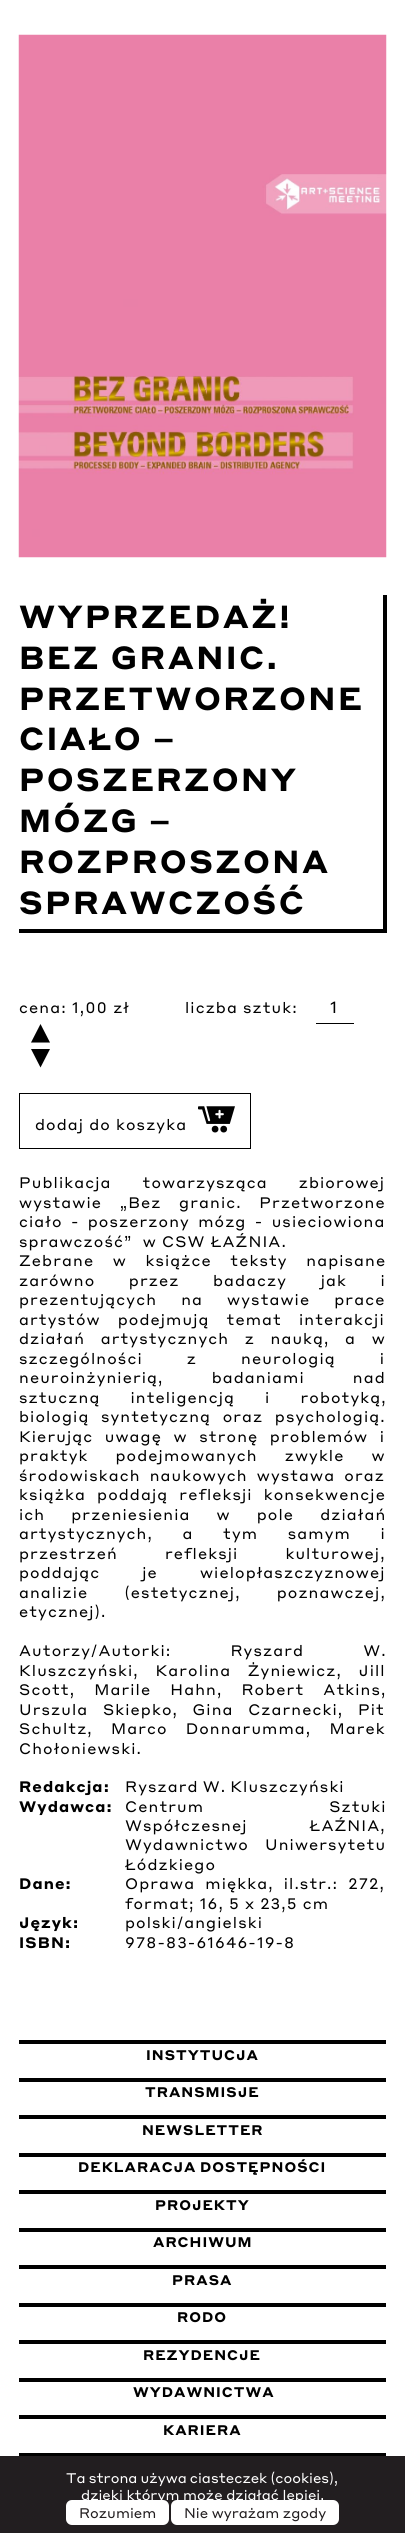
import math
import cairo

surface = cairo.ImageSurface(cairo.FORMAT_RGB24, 405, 2533)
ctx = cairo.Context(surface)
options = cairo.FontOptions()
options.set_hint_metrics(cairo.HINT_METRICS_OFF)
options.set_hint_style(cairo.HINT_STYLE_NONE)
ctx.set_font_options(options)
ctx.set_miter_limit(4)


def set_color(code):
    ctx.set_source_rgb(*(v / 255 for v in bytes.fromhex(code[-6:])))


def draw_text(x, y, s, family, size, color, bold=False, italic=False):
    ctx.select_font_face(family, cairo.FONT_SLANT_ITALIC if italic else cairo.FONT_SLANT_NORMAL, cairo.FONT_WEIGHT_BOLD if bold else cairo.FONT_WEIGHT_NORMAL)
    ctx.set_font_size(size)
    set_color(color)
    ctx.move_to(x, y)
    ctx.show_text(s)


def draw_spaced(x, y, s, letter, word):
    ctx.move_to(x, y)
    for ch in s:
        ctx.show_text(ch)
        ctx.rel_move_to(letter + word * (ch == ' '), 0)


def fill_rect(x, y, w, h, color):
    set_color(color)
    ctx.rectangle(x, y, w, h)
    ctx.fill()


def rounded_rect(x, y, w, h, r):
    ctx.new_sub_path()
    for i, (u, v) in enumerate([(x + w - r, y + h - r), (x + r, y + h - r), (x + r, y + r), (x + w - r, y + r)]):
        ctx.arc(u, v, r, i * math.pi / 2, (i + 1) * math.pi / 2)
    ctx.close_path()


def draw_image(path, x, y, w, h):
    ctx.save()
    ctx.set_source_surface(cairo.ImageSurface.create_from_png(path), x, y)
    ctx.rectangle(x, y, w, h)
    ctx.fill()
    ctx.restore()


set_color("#ffffff")
ctx.paint()
draw_image("assets/img1.png", 18, 34, 369, 524)
fill_rect(383, 595, 4, 338, "#000000")
fill_rect(19, 929, 367, 4, "#000000")
ctx.select_font_face("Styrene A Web", cairo.FONT_SLANT_NORMAL, cairo.FONT_WEIGHT_BOLD)
ctx.set_font_size(31.5)
draw_spaced(19, 628, "WYPRZEDAŻ!", 2.4, 0)
draw_spaced(19, 669, "BEZ GRANIC.", 2.4, 0)
draw_spaced(19, 710, "PRZETWORZONE", 2.4, 0)
draw_spaced(19, 750, "CIAŁO –", 2.4, -1)
draw_spaced(19, 791, "POSZERZONY", 2.4, 0)
draw_spaced(19, 832, "MÓZG –", 2.4, -1)
draw_spaced(19, 873, "ROZPROSZONA", 2.4, 0)
draw_spaced(19, 914, "SPRAWCZOŚĆ", 2.4, 0)
ctx.select_font_face("Styrene A Web")
ctx.set_font_size(15)
draw_spaced(19, 1013, "cena: 1,00 zł", 1.1, 0)
draw_spaced(185, 1013, "liczba sztuk:", 1.1, 0)
fill_rect(316, 1023, 38, 1, "#000000")
ctx.set_font_size(16)
draw_spaced(330, 1013, "1", 1, 0)
ctx.new_path()
ctx.move_to(31, 1042.5)
ctx.line_to(40.5, 1024)
ctx.line_to(50, 1042.5)
ctx.close_path()
ctx.move_to(50, 1049)
ctx.line_to(40.5, 1067.5)
ctx.line_to(31, 1049)
ctx.close_path()
ctx.fill()
ctx.rectangle(19.5, 1093.5, 231, 55)
ctx.set_line_width(1)
ctx.stroke()
ctx.set_font_size(15)
draw_spaced(35, 1130, "dodaj do koszyka", 1.1, 0)
draw_image("assets/img2.png", 198, 1106, 37, 27)
draw_spaced(19, 1188, "Publikacja towarzysząca zbiorowej", 1.1, 26)
draw_spaced(19, 1208, "wystawie „Bez granic. Przetworzone", 1.1, 12.5)
draw_spaced(19, 1227, "ciało - poszerzony mózg - usieciowiona", 1.1, 3.25)
draw_spaced(19, 1247, "sprawczość”  w CSW ŁAŹNIA.", 1.1, 0)
draw_spaced(19, 1266, "Zebrane w książce teksty napisane", 1.1, 13.5)
draw_spaced(19, 1286, "zarówno przez badaczy jak i", 1.1, 28.5)
draw_spaced(19, 1305, "prezentujących na wystawie prace", 1.1, 19)
draw_spaced(19, 1325, "artystów podejmują temat interakcji", 1.1, 12)
draw_spaced(19, 1344, "działań artystycznych z nauką, a w", 1.1, 10.5)
draw_spaced(19, 1364, "szczególności z neurologią i", 1.1, 39)
draw_spaced(19, 1383, "neuroinżynierią, badaniami nad", 1.1, 43)
draw_spaced(19, 1403, "sztuczną inteligencją i robotyką,", 1.1, 25)
draw_spaced(19, 1422, "biologią syntetyczną oraz psychologią.", 1.1, 6.5)
draw_spaced(19, 1442, "Kierując uwagę w stronę problemów i", 1.1, 6.5)
draw_spaced(19, 1461, "praktyk podejmowanych zwykle w", 1.1, 22)
draw_spaced(19, 1481, "środowiskach naukowych wystawa oraz", 1.1, 4)
draw_spaced(19, 1500, "książka poddają refleksji konsekwencje", 1.1, 6)
draw_spaced(19, 1520, "ich przeniesienia w pole działań", 1.1, 21)
draw_spaced(19, 1539, "artystycznych, a tym samym i", 1.1, 24.5)
draw_spaced(19, 1559, "przestrzeń refleksji kulturowej,", 1.1, 42)
draw_spaced(19, 1578, "poddając je wielopłaszczyznowej", 1.1, 37)
draw_spaced(19, 1598, "analizie (estetycznej, poznawczej,", 1.1, 31)
draw_spaced(19, 1617, "etycznej).", 1.1, 0)
draw_spaced(19, 1656, "Autorzy/Autorki: Ryszard W.", 1.1, 54)
draw_spaced(19, 1676, "Kluszczyński, Karolina Żyniewicz, Jill", 1.1, 11.5)
draw_spaced(19, 1695, "Scott, Marile Hahn, Robert Atkins,", 1.1, 14)
draw_spaced(19, 1715, "Urszula Skiepko, Gina Czarnecki, Pit", 1.1, 9.5)
draw_spaced(19, 1734, "Schultz, Marco Donnarumma, Marek", 1.1, 13)
draw_spaced(19, 1754, "Chołoniewski.", 1.1, 0)
ctx.select_font_face("Styrene A Web", cairo.FONT_SLANT_NORMAL, cairo.FONT_WEIGHT_BOLD)
draw_spaced(19, 1792, "Redakcja:", 1.1, 0)
ctx.select_font_face("Styrene A Web")
draw_spaced(125, 1792, "Ryszard W. Kluszczyński", 1.1, -1)
ctx.select_font_face("Styrene A Web", cairo.FONT_SLANT_NORMAL, cairo.FONT_WEIGHT_BOLD)
draw_spaced(19, 1812, "Wydawca:", 1.1, 0)
ctx.select_font_face("Styrene A Web")
draw_spaced(125, 1812, "Centrum Sztuki", 1.1, 120)
draw_spaced(125, 1831, "Współczesnej ŁAŹNIA,", 1.1, 57)
draw_spaced(125, 1850, "Wydawnictwo Uniwersytetu", 1.1, 11)
draw_spaced(125, 1870, "Łódzkiego", 1.1, 0)
ctx.select_font_face("Styrene A Web", cairo.FONT_SLANT_NORMAL, cairo.FONT_WEIGHT_BOLD)
draw_spaced(19, 1889, "Dane:", 1.1, 0)
ctx.select_font_face("Styrene A Web")
draw_spaced(125, 1889, "Oprawa miękka, il.str.: 272,", 1.1, 5)
draw_spaced(125, 1909, "format; 16, 5 x 23,5 cm", 1.1, 0)
ctx.select_font_face("Styrene A Web", cairo.FONT_SLANT_NORMAL, cairo.FONT_WEIGHT_BOLD)
draw_spaced(19, 1928, "Język:", 1.1, 0)
ctx.select_font_face("Styrene A Web")
draw_spaced(125, 1928, "polski/angielski", 1.1, 0)
ctx.select_font_face("Styrene A Web", cairo.FONT_SLANT_NORMAL, cairo.FONT_WEIGHT_BOLD)
draw_spaced(19, 1948, "ISBN:", 1.1, 0)
ctx.select_font_face("Styrene A Web")
draw_spaced(125, 1948, "978-83-61646-19-8", 1.1, 0)
fill_rect(19, 2040, 367, 4, "#000000")
ctx.select_font_face("Styrene A Web", cairo.FONT_SLANT_NORMAL, cairo.FONT_WEIGHT_BOLD)
ctx.set_font_size(13.75)
draw_spaced(146, 2060, "INSTYTUCJA", 1, 0)
fill_rect(19, 2078, 367, 4, "#000000")
draw_spaced(145, 2097, "TRANSMISJE", 1, 0)
fill_rect(19, 2115, 367, 4, "#000000")
draw_spaced(142, 2135, "NEWSLETTER", 1, 0)
fill_rect(19, 2153, 367, 4, "#000000")
draw_spaced(78, 2172, "DEKLARACJA DOSTĘPNOŚCI", 1, -1)
fill_rect(19, 2190, 367, 4, "#000000")
draw_spaced(155, 2210, "PROJEKTY", 1, 0)
fill_rect(19, 2228, 367, 4, "#000000")
draw_spaced(153, 2247, "ARCHIWUM", 1, 0)
fill_rect(19, 2265, 367, 4, "#000000")
draw_spaced(172, 2285, "PRASA", 1, 0)
fill_rect(19, 2303, 367, 4, "#000000")
draw_spaced(177, 2322, "RODO", 1, 0)
fill_rect(19, 2340, 367, 4, "#000000")
draw_spaced(143, 2360, "REZYDENCJE", 1, 0)
fill_rect(19, 2378, 367, 4, "#000000")
draw_spaced(133, 2397, "WYDAWNICTWA", 1, 0)
fill_rect(19, 2415, 367, 4, "#000000")
draw_spaced(163, 2435, "KARIERA", 1, 0)
fill_rect(19, 2453, 367, 3, "#000000")
fill_rect(0, 2456, 405, 77, "#221e20")
ctx.select_font_face("Styrene A Web")
set_color("#ffffff")
draw_spaced(66, 2483, "Ta strona używa ciasteczek (cookies),", 0, -0.5)
draw_text(81, 2500, "dzięki którym może działać lepiej.", "Styrene A Web", 13.75, "#ffffff")
rounded_rect(66, 2500, 103, 25, 6)
ctx.fill()
draw_text(79, 2518, "Rozumiem", "Styrene A Web", 13.75, "#221e20")
set_color("#ffffff")
rounded_rect(171, 2500, 168, 25, 6)
ctx.fill()
draw_text(184, 2518, "Nie wyrażam zgody", "Styrene A Web", 13.75, "#221e20")
surface.write_to_png("output.png")
